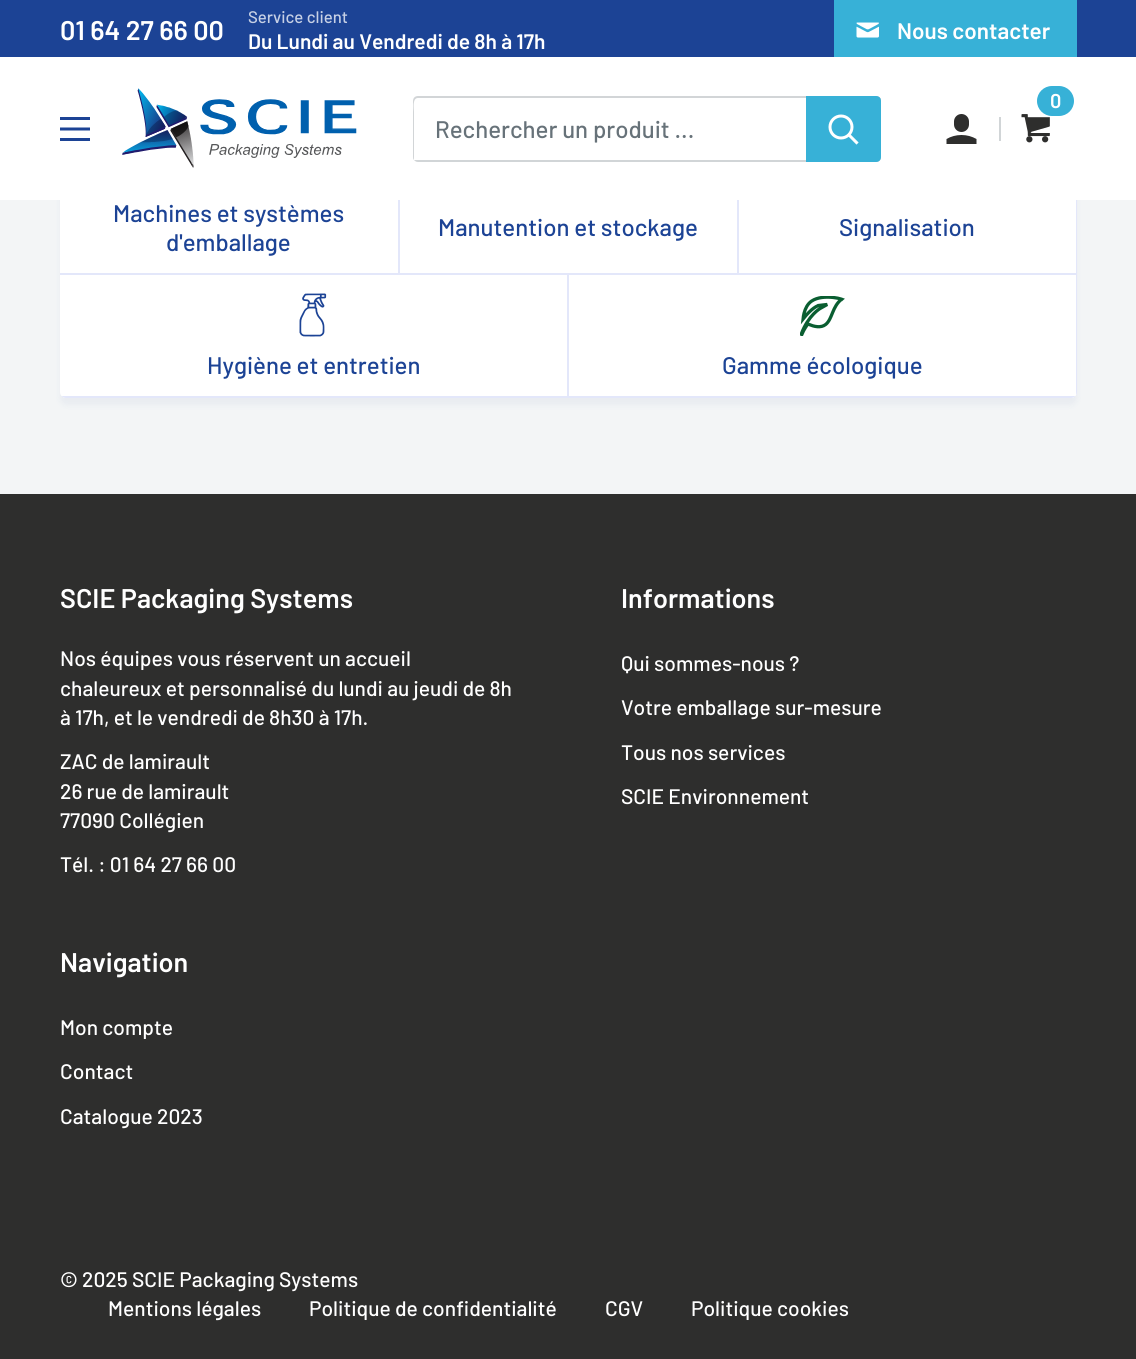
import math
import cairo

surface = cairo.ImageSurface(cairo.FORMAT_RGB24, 1136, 1359)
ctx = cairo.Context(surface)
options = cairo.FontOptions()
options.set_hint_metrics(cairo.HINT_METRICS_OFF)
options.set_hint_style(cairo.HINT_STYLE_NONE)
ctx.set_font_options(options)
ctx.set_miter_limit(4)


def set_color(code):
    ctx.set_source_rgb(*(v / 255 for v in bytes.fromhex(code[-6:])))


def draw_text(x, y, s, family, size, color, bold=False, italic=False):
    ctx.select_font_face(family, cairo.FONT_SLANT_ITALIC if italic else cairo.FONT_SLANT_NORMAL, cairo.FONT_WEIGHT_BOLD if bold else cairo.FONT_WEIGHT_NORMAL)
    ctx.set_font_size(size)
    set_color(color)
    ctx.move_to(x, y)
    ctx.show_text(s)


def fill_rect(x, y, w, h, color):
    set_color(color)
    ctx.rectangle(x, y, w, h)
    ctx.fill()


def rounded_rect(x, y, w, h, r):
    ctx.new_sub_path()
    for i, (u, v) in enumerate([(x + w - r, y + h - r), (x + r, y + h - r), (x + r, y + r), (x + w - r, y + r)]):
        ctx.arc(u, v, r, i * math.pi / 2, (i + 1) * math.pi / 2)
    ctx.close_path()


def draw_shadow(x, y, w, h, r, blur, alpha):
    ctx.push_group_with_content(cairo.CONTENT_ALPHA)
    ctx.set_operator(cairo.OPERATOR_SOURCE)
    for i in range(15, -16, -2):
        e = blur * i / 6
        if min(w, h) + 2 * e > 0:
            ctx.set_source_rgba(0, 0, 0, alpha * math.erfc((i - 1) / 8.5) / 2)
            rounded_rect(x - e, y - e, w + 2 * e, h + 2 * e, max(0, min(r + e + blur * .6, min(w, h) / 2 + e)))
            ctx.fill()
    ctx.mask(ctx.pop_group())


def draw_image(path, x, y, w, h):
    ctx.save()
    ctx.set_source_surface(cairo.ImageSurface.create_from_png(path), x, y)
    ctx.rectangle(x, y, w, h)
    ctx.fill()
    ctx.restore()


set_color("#f3f5f6")
ctx.paint()
set_color("#1c4395")
draw_shadow(60, -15, 1017, 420, 6, 3, 0.05)
set_color("#ffffff")
rounded_rect(60, -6, 1017, 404, 6)
ctx.fill()
fill_rect(0, 0, 1136, 57, "#1c4395")
draw_text(60, 40, "01 64 27 66 00", "Barlow SemiBold", 27, "#ffffff")
draw_text(248, 23, "Service client", "Barlow Medium", 16.75, "#c6d0e5")
draw_text(248, 49, "Du Lundi au Vendredi de 8h à 17h", "Barlow SemiBold", 21, "#ffffff")
fill_rect(834, 0, 243, 57, "#37b1d7")
draw_image("assets/img1.png", 856, 22, 23, 16)
draw_text(897, 39, "Nous contacter", "Barlow SemiBold", 22.5, "#ffffff")
fill_rect(0, 57, 1136, 143, "#ffffff")
draw_image("assets/img2.png", 122, 88, 235, 80)
draw_image("assets/img3.png", 1021, 114, 29, 29)
set_color("#37b1d7")
rounded_rect(1037, 86, 37, 30, 15)
ctx.fill()
draw_text(1050, 108, "0", "Barlow SemiBold", 20, "#ffffff")
draw_image("assets/img4.png", 946, 114, 31, 30)
fill_rect(999, 117, 2, 24, "#d1d5d7")
draw_image("assets/img5.png", 60, 117, 30, 24)
ctx.new_path()
ctx.move_to(414, 160)
ctx.curve_to(415, 161, 416, 162, 418, 162)
ctx.line_to(876, 162)
ctx.curve_to(879, 162, 881, 160, 881, 157)
ctx.line_to(881, 101)
ctx.curve_to(881, 99, 880, 97, 878, 97)
ctx.line_to(879, 99)
ctx.line_to(879, 156)
ctx.curve_to(879, 158, 877, 160, 874, 160)
ctx.line_to(416, 160)
ctx.close_path()
ctx.fill()
ctx.set_source_rgba(0.404, 0.447, 0.475, 0.3)
ctx.new_path()
ctx.move_to(418, 98)
ctx.line_to(878, 98)
ctx.line_to(881, 99)
ctx.curve_to(880, 97, 878, 96, 876, 96)
ctx.line_to(418, 96)
ctx.curve_to(415, 96, 413, 98, 413, 101)
ctx.line_to(413, 157)
ctx.curve_to(413, 158, 413, 159, 414, 160)
ctx.line_to(414, 112)
ctx.curve_to(414, 109, 412, 98, 418, 98)
ctx.close_path()
ctx.fill()
draw_text(435, 138, "Rechercher un produit ...", "Barlow Medium", 24, "#677279")
set_color("#37b1d7")
ctx.new_path()
ctx.move_to(806, 96)
ctx.line_to(876, 96)
ctx.curve_to(879, 96, 881, 98, 881, 101)
ctx.line_to(881, 157)
ctx.curve_to(881, 160, 879, 162, 876, 162)
ctx.line_to(806, 162)
ctx.close_path()
ctx.fill()
ctx.new_path()
ctx.move_to(856.5, 142.5)
ctx.line_to(849, 135)
set_color("#ffffff")
ctx.set_line_width(3)
ctx.set_line_cap(cairo.LINE_CAP_SQUARE)
ctx.stroke()
ctx.arc(841, 127, 11, 0, 2 * math.pi)
ctx.set_line_cap(cairo.LINE_CAP_BUTT)
ctx.stroke()
fill_rect(398, 200, 2, 75, "#e3e7fa")
fill_rect(60, 273, 339, 2, "#e3e7fa")
draw_text(113, 222, "Machines et systèmes", "Barlow Medium", 24, "#1c4395")
draw_text(166, 251, "d'emballage", "Barlow Medium", 24, "#1c4395")
fill_rect(737, 200, 2, 75, "#e3e7fa")
fill_rect(399, 273, 339, 2, "#e3e7fa")
draw_text(438, 236, "Manutention et stockage", "Barlow Medium", 24, "#1c4395")
fill_rect(1076, 200, 1, 75, "#e3e7fa")
fill_rect(738, 273, 339, 2, "#e3e7fa")
draw_text(839, 236, "Signalisation", "Barlow Medium", 24, "#1c4395")
fill_rect(567, 275, 2, 123, "#e3e7fa")
ctx.save()
rounded_rect(60, -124, 1017, 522, 6)
ctx.clip()
fill_rect(60, 396, 509, 2, "#e3e7fa")
ctx.restore()
draw_image("assets/img6.png", 299, 293, 28, 44)
draw_text(207, 374, "Hygiène et entretien", "Barlow Medium", 24, "#1c4395")
ctx.save()
rounded_rect(60, -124, 1017, 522, 6)
ctx.clip()
fill_rect(1076, 275, 1, 123, "#e3e7fa")
fill_rect(569, 396, 508, 2, "#e3e7fa")
ctx.restore()
draw_image("assets/img7.png", 800, 296, 45, 40)
draw_text(722, 374, "Gamme écologique", "Barlow Medium", 24, "#1c4395")
fill_rect(0, 494, 1136, 865, "#2e2e2d")
draw_text(60, 608, "SCIE Packaging Systems", "Barlow SemiBold", 27, "#ffffff")
draw_text(60, 666, "Nos équipes vous réservent un accueil", "Barlow Medium", 21, "#ffffff")
draw_text(60, 696, "chaleureux et personnalisé du lundi au jeudi de 8h", "Barlow Medium", 21, "#ffffff")
draw_text(60, 725, "à 17h, et le vendredi de 8h30 à 17h.", "Barlow Medium", 21, "#ffffff")
draw_text(60, 769, "ZAC de lamirault", "Barlow Medium", 21, "#ffffff")
draw_text(60, 799, "26 rue de lamirault", "Barlow Medium", 21, "#ffffff")
draw_text(60, 828, "77090 Collégien", "Barlow Medium", 21, "#ffffff")
draw_text(60, 872, "Tél. : 01 64 27 66 00", "Barlow Medium", 21, "#ffffff")
draw_text(621, 608, "Informations", "Barlow SemiBold", 27, "#ffffff")
draw_text(621, 671, "Qui sommes-nous ?", "Barlow Medium", 21, "#ffffff")
draw_text(621, 715, "Votre emballage sur-mesure", "Barlow Medium", 21, "#ffffff")
draw_text(621, 760, "Tous nos services", "Barlow Medium", 21, "#ffffff")
draw_text(621, 804, "SCIE Environnement", "Barlow Medium", 21, "#ffffff")
draw_text(60, 972, "Navigation", "Barlow SemiBold", 27, "#ffffff")
draw_text(60, 1035, "Mon compte", "Barlow Medium", 21, "#ffffff")
draw_text(60, 1079, "Contact", "Barlow Medium", 21, "#ffffff")
draw_text(60, 1124, "Catalogue 2023", "Barlow Medium", 21, "#ffffff")
draw_text(60, 1287, "© 2025 SCIE Packaging Systems", "Barlow Medium", 21, "#ffffff")
draw_text(108, 1316, "Mentions légales", "Barlow Medium", 21, "#ffffff")
draw_text(309, 1316, "Politique de confidentialité", "Barlow Medium", 21, "#ffffff")
draw_text(605, 1316, "CGV", "Barlow Medium", 21, "#ffffff")
draw_text(691, 1316, "Politique cookies", "Barlow Medium", 21, "#ffffff")
surface.write_to_png("output.png")
